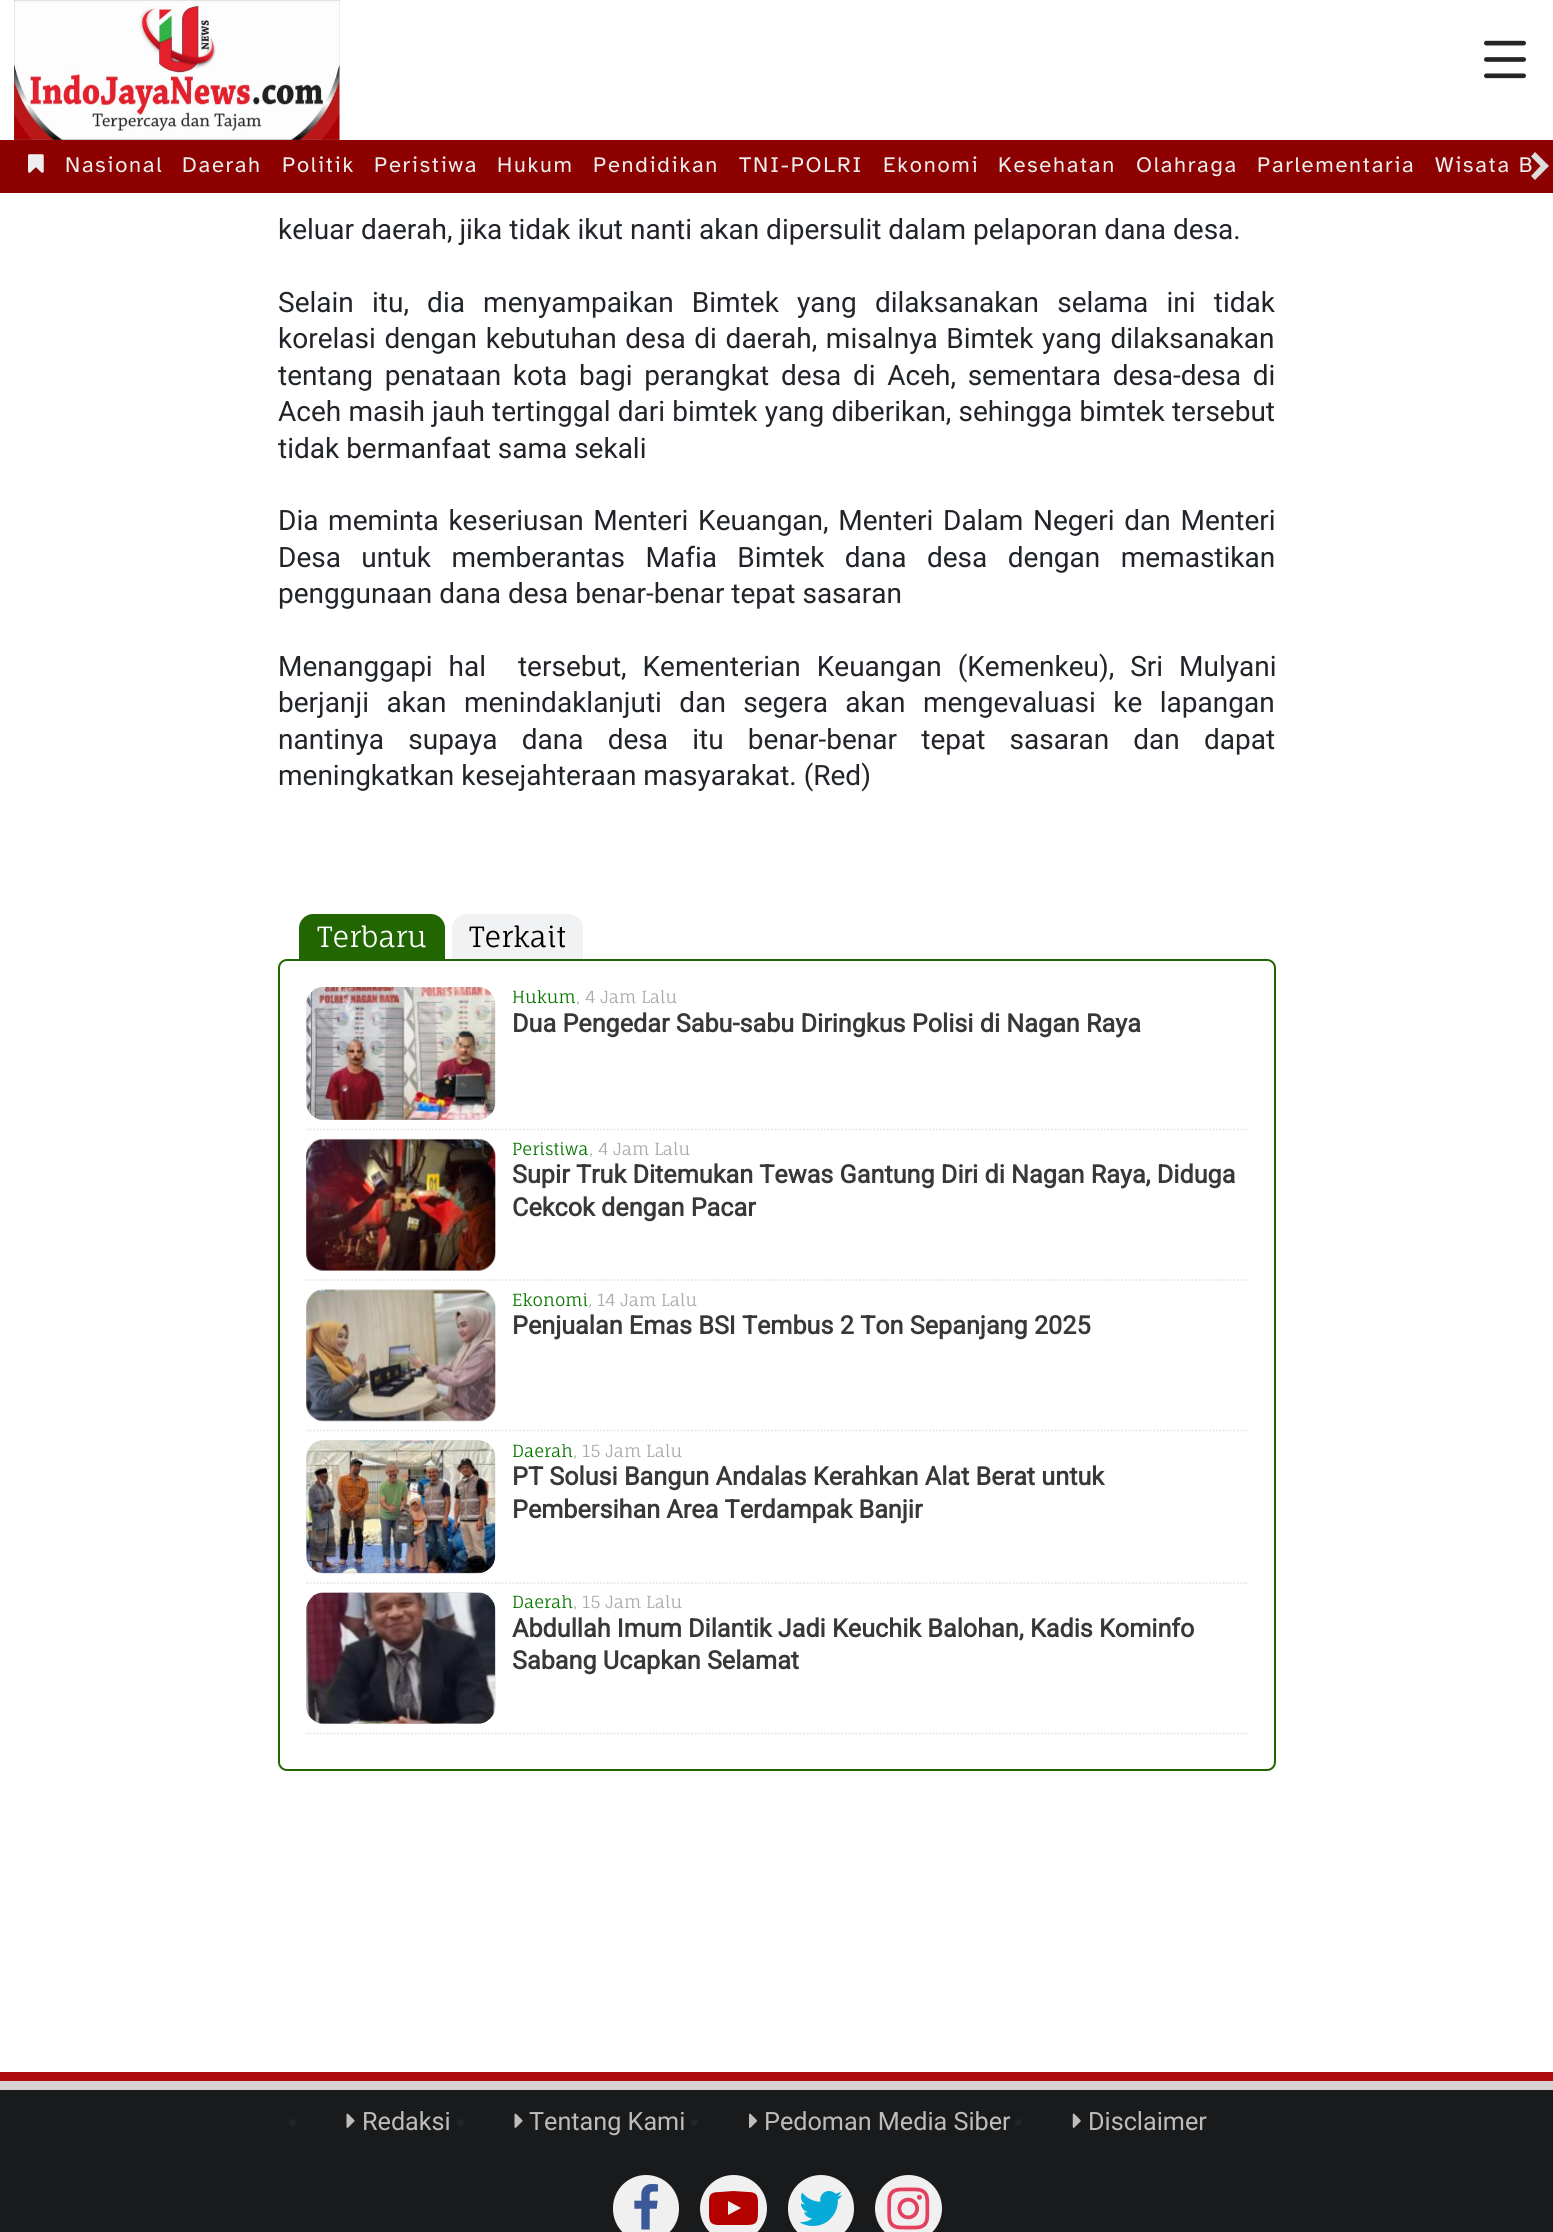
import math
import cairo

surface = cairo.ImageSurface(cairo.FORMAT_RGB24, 1553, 2232)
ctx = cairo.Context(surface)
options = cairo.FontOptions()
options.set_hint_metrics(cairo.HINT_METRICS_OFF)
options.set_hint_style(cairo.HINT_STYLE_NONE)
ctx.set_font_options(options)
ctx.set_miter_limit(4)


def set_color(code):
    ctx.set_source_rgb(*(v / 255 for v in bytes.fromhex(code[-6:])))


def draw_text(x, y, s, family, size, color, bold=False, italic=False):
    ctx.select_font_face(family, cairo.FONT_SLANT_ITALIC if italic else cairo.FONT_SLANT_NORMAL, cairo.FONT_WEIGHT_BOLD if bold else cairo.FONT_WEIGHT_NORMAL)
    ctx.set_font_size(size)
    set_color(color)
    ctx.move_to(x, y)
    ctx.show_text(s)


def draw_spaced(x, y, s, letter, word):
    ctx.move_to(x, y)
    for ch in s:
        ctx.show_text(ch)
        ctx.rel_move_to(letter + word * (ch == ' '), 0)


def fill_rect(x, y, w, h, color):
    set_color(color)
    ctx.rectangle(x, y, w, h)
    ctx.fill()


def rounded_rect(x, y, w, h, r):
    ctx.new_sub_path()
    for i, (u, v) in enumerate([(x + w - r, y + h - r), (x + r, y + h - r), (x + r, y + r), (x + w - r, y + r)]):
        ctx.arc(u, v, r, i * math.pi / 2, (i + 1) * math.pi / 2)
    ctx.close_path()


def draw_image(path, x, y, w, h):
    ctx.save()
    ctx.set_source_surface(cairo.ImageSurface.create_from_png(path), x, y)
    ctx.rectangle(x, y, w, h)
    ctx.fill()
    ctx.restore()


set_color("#ffffff")
ctx.paint()
draw_image("assets/img1.png", 14, 0, 326, 140)
draw_image("assets/img2.png", 1484, 40, 42, 39)
fill_rect(0, 140, 1553, 53, "#8d0101")
draw_image("assets/img3.png", 28, 154, 16, 19)
ctx.select_font_face("Atkinson Hyperlegible")
ctx.set_font_size(22)
set_color("#eeeeee")
draw_spaced(65, 172, "Nasional", 1.75, 0)
draw_spaced(182, 172, "Daerah", 1.75, 0)
draw_spaced(282, 172, "Politik", 1.75, 0)
draw_spaced(374, 172, "Peristiwa", 1.75, 0)
draw_spaced(497, 172, "Hukum", 1.75, 0)
draw_spaced(593, 172, "Pendidikan", 1.75, 0)
draw_spaced(739, 172, "TNI-POLRI", 1.75, 0)
draw_spaced(883, 172, "Ekonomi", 1.75, 0)
draw_spaced(998, 172, "Kesehatan", 1.75, 0)
draw_spaced(1136, 172, "Olahraga", 1.75, 0)
draw_spaced(1257, 172, "Parlementaria", 1.75, 0)
draw_spaced(1435, 172, "Wisata B", 1.75, 0)
set_color("#dddddd")
ctx.new_path()
ctx.move_to(1531, 176)
ctx.line_to(1540.5, 166)
ctx.line_to(1531, 156.5)
ctx.line_to(1535, 152)
ctx.line_to(1549, 166)
ctx.line_to(1535, 180)
ctx.close_path()
ctx.fill()
draw_text(278, 239, "keluar daerah, jika tidak ikut nanti akan dipersulit dalam pelaporan dana desa.", "Roboto", 28, "#212529")
draw_spaced(278, 312, "Selain itu, dia menyampaikan Bimtek yang dilaksanakan selama ini tidak", 0, 11.25)
draw_spaced(278, 348, "korelasi dengan kebutuhan desa di daerah, misalnya Bimtek yang dilaksanakan", 0, 1.75)
draw_spaced(278, 385, "tentang penataan kota bagi perangkat desa di Aceh, sementara desa-desa di", 0, 4.75)
draw_spaced(278, 421, "Aceh masih jauh tertinggal dari bimtek yang diberikan, sehingga bimtek tersebut", 0, 0.25)
draw_text(278, 458, "tidak bermanfaat sama sekali", "Roboto", 28, "#212529")
draw_spaced(278, 530, "Dia meminta keseriusan Menteri Keuangan, Menteri Dalam Negeri dan Menteri", 0, 2.75)
draw_spaced(278, 567, "Desa untuk memberantas Mafia Bimtek dana desa dengan memastikan", 0, 13.5)
draw_text(278, 603, "penggunaan dana desa benar-benar tepat sasaran", "Roboto", 28, "#212529")
draw_spaced(278, 676, "Menanggapi hal  tersebut, Kementerian Keuangan (Kemenkeu), Sri Mulyani", 0, 9)
draw_spaced(278, 712, "berjanji akan menindaklanjuti dan segera akan mengevaluasi ke lapangan", 0, 10.5)
draw_spaced(278, 749, "nantinya supaya dana desa itu benar-benar tepat sasaran dan dapat", 0, 17.25)
draw_text(278, 785, "meningkatkan kesejahteraan masyarakat. (Red)", "Roboto", 28, "#212529")
set_color("#216601")
ctx.new_path()
ctx.move_to(313, 914)
ctx.line_to(431, 914)
ctx.curve_to(438.5, 914, 445, 920.5, 445, 928)
ctx.line_to(445, 959)
ctx.line_to(299, 959)
ctx.line_to(299, 928)
ctx.curve_to(299, 920.5, 305.5, 914, 313, 914)
ctx.close_path()
ctx.fill()
draw_text(317, 947, "Terbaru", "Fauna One", 28, "#ffffff")
set_color("#f1f2f3")
ctx.new_path()
ctx.move_to(466, 914)
ctx.line_to(569, 914)
ctx.curve_to(576.5, 914, 583, 920.5, 583, 928)
ctx.line_to(583, 959)
ctx.line_to(452, 959)
ctx.line_to(452, 928)
ctx.curve_to(452, 920.5, 458.5, 914, 466, 914)
ctx.close_path()
ctx.fill()
draw_text(469, 947, "Terkait", "Fauna One", 28, "#000000")
rounded_rect(279, 960, 996, 810, 8)
set_color("#216601")
ctx.stroke()
draw_image("assets/img4.png", 306, 987, 190, 133)
draw_image("assets/img5.png", 306, 987, 190, 133)
draw_text(512, 1003, "Hukum", "Fauna One", 16.75, "#087700")
draw_text(576, 1003, ", 4 Jam Lalu", "Fauna One", 16.75, "#aaaaaa")
draw_text(512, 1032, "Dua Pengedar Sabu-sabu Diringkus Polisi di Nagan Raya", "Roboto", 25.2, "#383838", bold=True)
ctx.new_path()
ctx.move_to(306, 1129.5)
ctx.line_to(1248, 1129.5)
set_color("#e7e7e7")
ctx.set_line_width(1.8)
ctx.set_dash([1.75, 1.75])
ctx.stroke()
draw_image("assets/img7.png", 306, 1139, 190, 132)
draw_image("assets/img6.png", 306, 1138, 190, 133)
draw_text(512, 1155, "Peristiwa", "Fauna One", 16.75, "#087700")
draw_text(589, 1155, ", 4 Jam Lalu", "Fauna One", 16.75, "#aaaaaa")
draw_text(512, 1183, "Supir Truk Ditemukan Tewas Gantung Diri di Nagan Raya, Diduga", "Roboto", 25.2, "#383838", bold=True)
draw_text(512, 1216, "Cekcok dengan Pacar", "Roboto", 25.2, "#383838", bold=True)
ctx.new_path()
ctx.move_to(306, 1280)
ctx.line_to(1248, 1280)
set_color("#e7e7e7")
ctx.stroke()
draw_image("assets/img8.png", 306, 1289, 190, 132)
draw_image("assets/img9.png", 306, 1289, 190, 133)
draw_text(512, 1306, "Ekonomi", "Fauna One", 16.75, "#087700")
draw_text(588, 1306, ", 14 Jam Lalu", "Fauna One", 16.75, "#aaaaaa")
draw_text(512, 1334, "Penjualan Emas BSI Tembus 2 Ton Sepanjang 2025", "Roboto", 25.2, "#383838", bold=True)
ctx.new_path()
ctx.move_to(306, 1430.5)
ctx.line_to(1248, 1430.5)
set_color("#e7e7e7")
ctx.stroke()
draw_image("assets/img10.png", 306, 1440, 190, 134)
draw_image("assets/img11.png", 306, 1440, 190, 134)
draw_text(512, 1457, "Daerah", "Fauna One", 16.75, "#087700")
draw_text(573, 1457, ", 15 Jam Lalu", "Fauna One", 16.75, "#aaaaaa")
draw_text(512, 1485, "PT Solusi Bangun Andalas Kerahkan Alat Berat untuk", "Roboto", 25.2, "#383838", bold=True)
draw_text(512, 1518, "Pembersihan Area Terdampak Banjir", "Roboto", 25.2, "#383838", bold=True)
ctx.new_path()
ctx.move_to(306, 1583)
ctx.line_to(1248, 1583)
set_color("#e7e7e7")
ctx.stroke()
draw_image("assets/img12.png", 306, 1592, 190, 132)
draw_image("assets/img13.png", 306, 1592, 190, 132)
draw_text(512, 1608, "Daerah", "Fauna One", 16.75, "#087700")
draw_text(573, 1608, ", 15 Jam Lalu", "Fauna One", 16.75, "#aaaaaa")
draw_text(512, 1637, "Abdullah Imum Dilantik Jadi Keuchik Balohan, Kadis Kominfo", "Roboto", 25.2, "#383838", bold=True)
draw_text(512, 1669, "Sabang Ucapkan Selamat", "Roboto", 25.2, "#383838", bold=True)
ctx.new_path()
ctx.move_to(306, 1733.5)
ctx.line_to(1248, 1733.5)
set_color("#e7e7e7")
ctx.stroke()
fill_rect(0, 2072, 1553, 9, "#ad0c0c")
fill_rect(0, 2090, 1553, 142, "#181a1b")
set_color("#f1f0f0")
rounded_rect(613, 2175, 66, 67, 33)
ctx.fill()
draw_image("assets/img14.png", 634, 2184, 24, 46)
ctx.arc(733.5, 2208.5, 33.5, 0, 2 * math.pi)
ctx.fill()
set_color("#b50000")
ctx.new_path()
ctx.move_to(728, 2215)
ctx.line_to(741, 2208)
ctx.line_to(728, 2201)
ctx.close_path()
ctx.move_to(733, 2191)
ctx.line_to(748, 2192)
ctx.curve_to(759, 2192, 758, 2198, 758, 2208)
ctx.curve_to(758, 2221, 758, 2225, 747, 2225)
ctx.line_to(719, 2225)
ctx.curve_to(708, 2225, 709, 2219, 709, 2208)
ctx.curve_to(709, 2196, 708, 2192, 720, 2192)
ctx.close_path()
ctx.fill()
set_color("#f1f0f0")
rounded_rect(788, 2175, 66, 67, 33)
ctx.fill()
draw_image("assets/img15.png", 799, 2191, 44, 35)
ctx.arc(908.5, 2208.5, 33.5, 0, 2 * math.pi)
ctx.fill()
draw_image("assets/img16.png", 887, 2187, 43, 43)
fill_rect(0, 2081, 1553, 9, "#d8d1d1")
set_color("#212529")
ctx.arc(292.5, 2122.5, 3.5, 0, 2 * math.pi)
ctx.fill()
draw_image("assets/img17.png", 346, 2113, 9, 15)
draw_text(362, 2130, "Redaksi", "Roboto", 25.2, "#bdbdbd")
set_color("#212529")
ctx.new_path()
ctx.arc(460.5, 2122.5, 3.5, 0, 2 * math.pi)
ctx.fill()
draw_image("assets/img17.png", 514, 2113, 9, 15)
draw_text(529, 2130, "Tentang Kami", "Roboto", 25.2, "#bdbdbd")
set_color("#212529")
ctx.new_path()
ctx.arc(694.5, 2122.5, 3.5, 0, 2 * math.pi)
ctx.fill()
draw_image("assets/img18.png", 749, 2113, 8, 15)
draw_text(764, 2130, "Pedoman Media Siber", "Roboto", 25.2, "#bdbdbd")
set_color("#212529")
ctx.new_path()
ctx.arc(1018.5, 2122.5, 3.5, 0, 2 * math.pi)
ctx.fill()
draw_image("assets/img19.png", 1072, 2113, 9, 15)
draw_text(1088, 2130, "Disclaimer", "Roboto", 25.2, "#bdbdbd")
surface.write_to_png("output.png")
